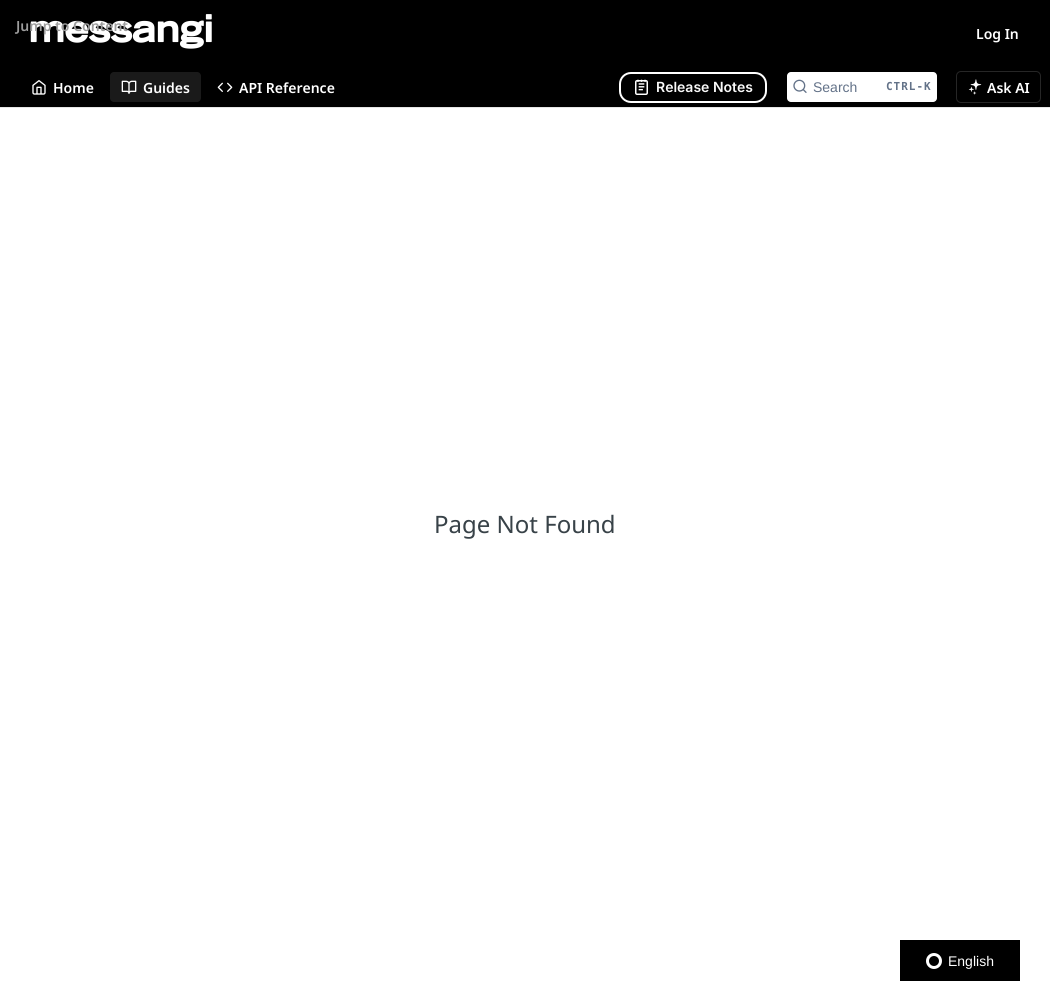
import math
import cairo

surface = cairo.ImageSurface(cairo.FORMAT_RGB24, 1050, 981)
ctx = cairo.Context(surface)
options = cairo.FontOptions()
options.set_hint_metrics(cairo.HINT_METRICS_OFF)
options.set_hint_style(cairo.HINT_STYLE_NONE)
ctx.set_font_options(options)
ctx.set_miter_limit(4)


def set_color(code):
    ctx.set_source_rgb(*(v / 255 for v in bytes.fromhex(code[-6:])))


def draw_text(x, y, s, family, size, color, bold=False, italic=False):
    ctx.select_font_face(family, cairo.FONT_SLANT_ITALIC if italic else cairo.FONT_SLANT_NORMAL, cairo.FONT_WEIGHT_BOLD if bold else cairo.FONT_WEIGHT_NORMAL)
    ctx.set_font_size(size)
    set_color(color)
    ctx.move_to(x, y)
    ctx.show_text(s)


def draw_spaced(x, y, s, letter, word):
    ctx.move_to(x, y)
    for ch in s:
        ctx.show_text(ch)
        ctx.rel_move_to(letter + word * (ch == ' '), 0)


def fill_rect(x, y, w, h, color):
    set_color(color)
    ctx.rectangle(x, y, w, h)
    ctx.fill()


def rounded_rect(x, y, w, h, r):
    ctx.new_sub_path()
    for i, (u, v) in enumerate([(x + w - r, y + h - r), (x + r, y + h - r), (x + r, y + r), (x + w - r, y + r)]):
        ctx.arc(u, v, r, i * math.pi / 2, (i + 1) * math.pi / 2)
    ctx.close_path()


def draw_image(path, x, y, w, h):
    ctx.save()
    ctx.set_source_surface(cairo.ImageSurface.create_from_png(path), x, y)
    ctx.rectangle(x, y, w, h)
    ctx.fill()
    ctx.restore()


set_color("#ffffff")
ctx.paint()
fill_rect(0, 107, 1050, 1, "#e6e6e6")
fill_rect(0, 0, 1050, 107, "#000000")
draw_image("assets/img1.png", 30, 14, 182, 35)
draw_text(16, 31, "Jump to Content", "Noto Sans SemiBold", 14, "#9d9d9d")
draw_text(976, 39, "Log In", "Noto Sans SemiBold", 14, "#ffffff")
draw_image("assets/img2.png", 32, 80, 14, 15)
draw_text(53, 93, "Home", "Noto Sans SemiBold", 14, "#ffffff")
set_color("#1a1a1a")
rounded_rect(110, 72, 91, 30, 4)
ctx.fill()
draw_image("assets/img3.png", 121, 80, 16, 14)
draw_text(143, 93, "Guides", "Noto Sans SemiBold", 14, "#ffffff")
draw_image("assets/img4.png", 217, 82, 16, 10)
draw_text(239, 93, "API Reference", "Noto Sans SemiBold", 14, "#ffffff")
rounded_rect(620, 73, 146, 29, 11)
ctx.stroke()
draw_image("assets/img5.png", 635, 79, 13, 16)
draw_text(656, 92, "Release Notes", "Inter SemiBold", 14, "#f9f9f9")
set_color("#ffffff")
rounded_rect(787, 72, 150, 30, 4)
ctx.fill()
draw_image("assets/img6.png", 793, 79, 14, 14)
draw_text(813, 92, "Search", "Liberation Sans", 14, "#637288")
ctx.select_font_face("DejaVu Sans Mono", cairo.FONT_SLANT_NORMAL, cairo.FONT_WEIGHT_BOLD)
ctx.set_font_size(11)
draw_spaced(886, 90, "CTRL-K", 1, 0)
rounded_rect(956.5, 71.5, 84, 31, 4.5)
set_color("#262626")
ctx.set_line_width(1)
ctx.stroke()
draw_image("assets/img7.png", 968, 79, 14, 16)
draw_text(987, 93, "Ask AI", "Noto Sans SemiBold", 14, "#ffffff")
draw_text(434, 533, "Page Not Found", "Noto Sans", 24, "#384248")
fill_rect(900, 940, 120, 41, "#000000")
ctx.new_path()
ctx.arc(934, 961, 6.5, 0, 2 * math.pi)
set_color("#ffffff")
ctx.set_line_width(3)
ctx.stroke()
draw_text(948, 966, "English", "Liberation Sans", 14, "#ffffff")
surface.write_to_png("output.png")
